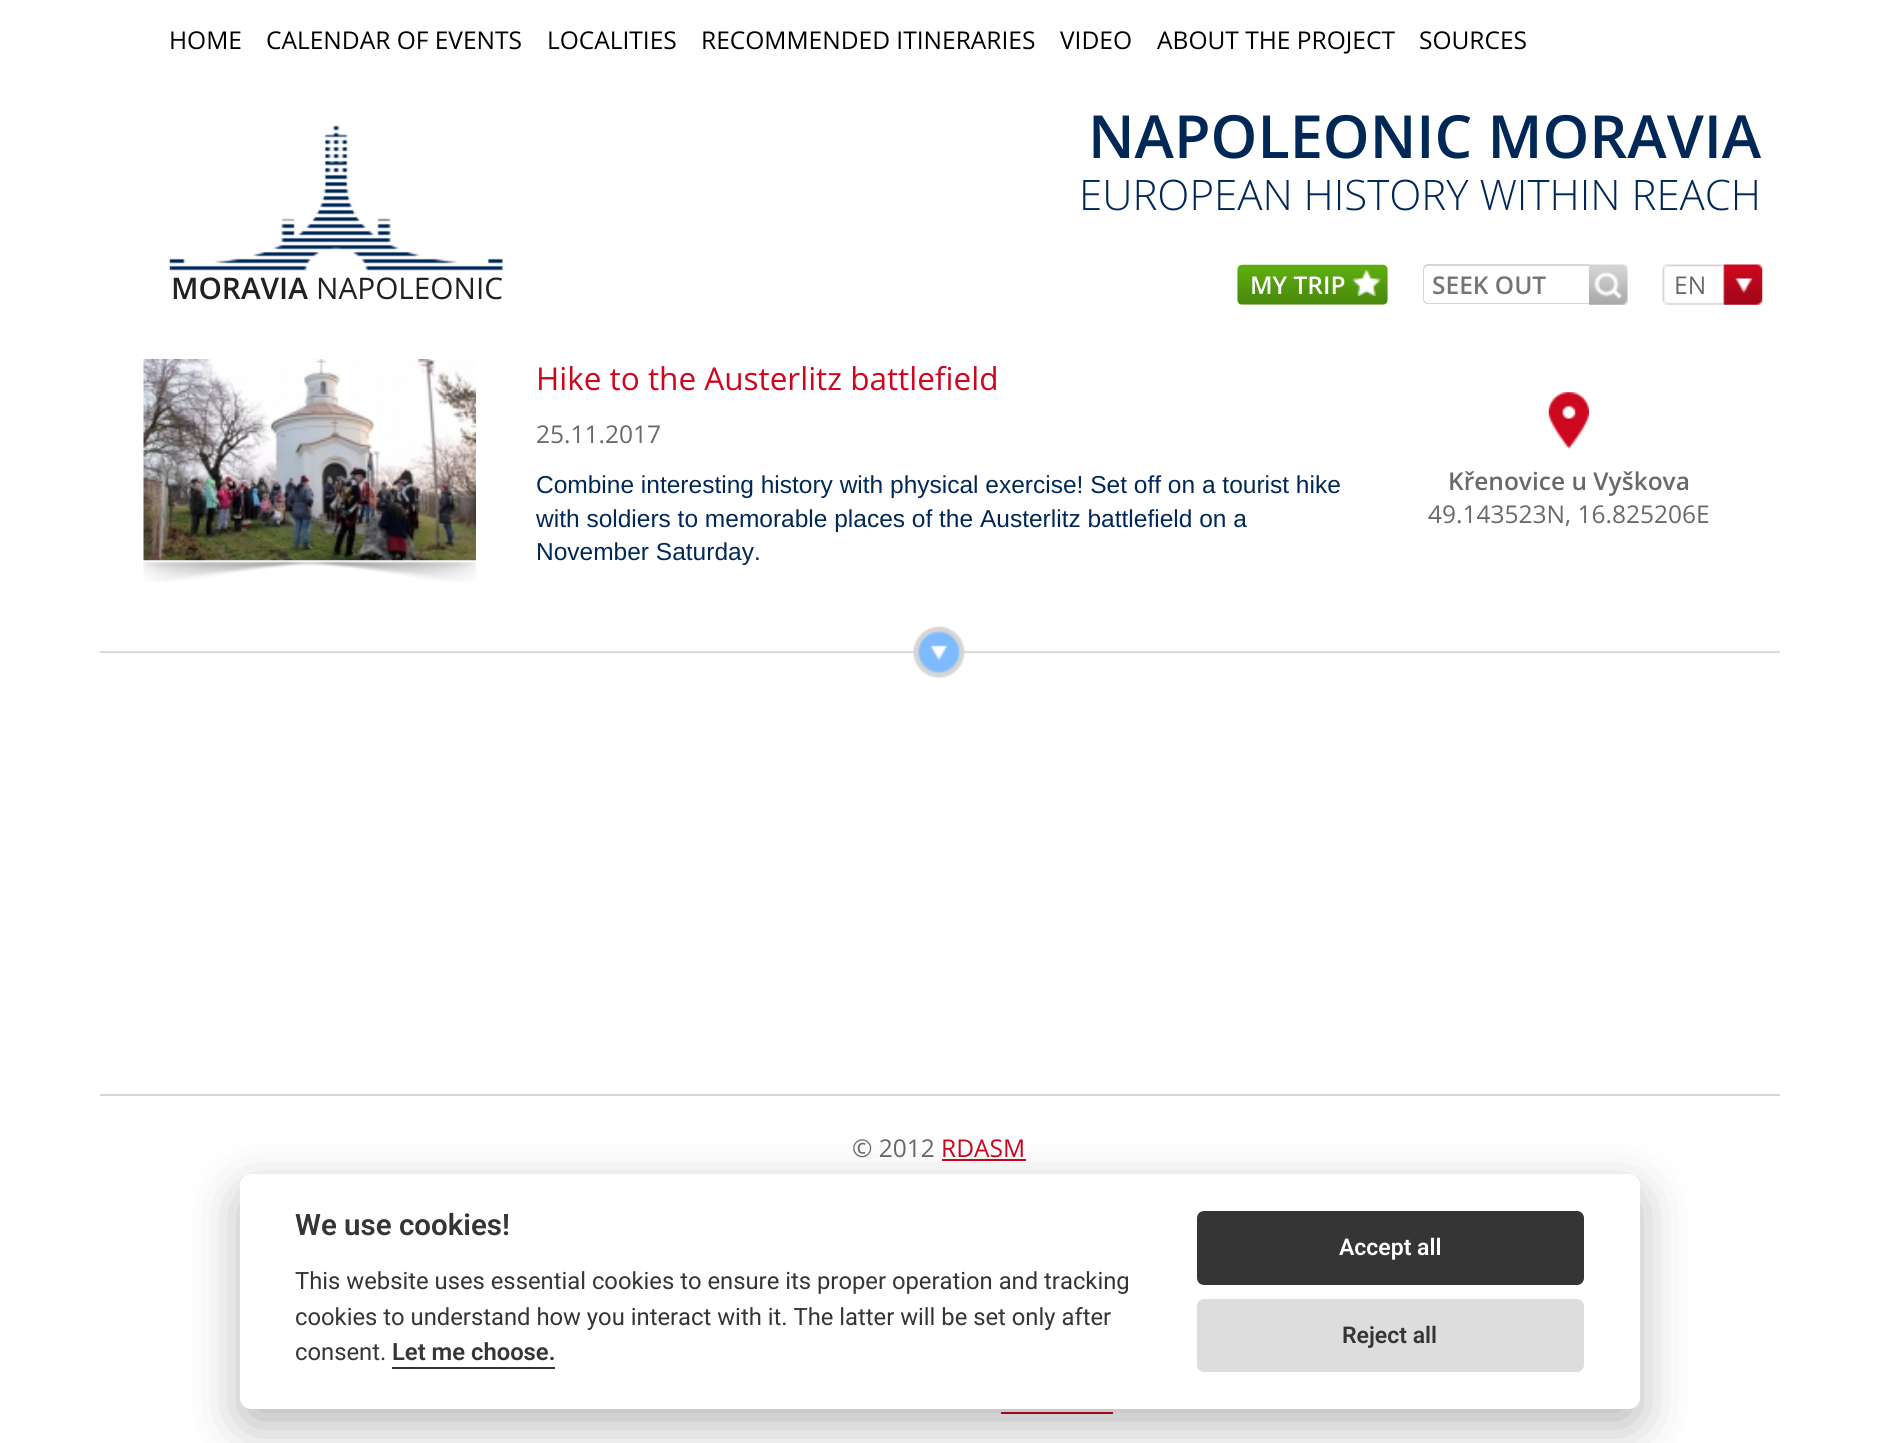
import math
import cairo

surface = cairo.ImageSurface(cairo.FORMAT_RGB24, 1877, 1443)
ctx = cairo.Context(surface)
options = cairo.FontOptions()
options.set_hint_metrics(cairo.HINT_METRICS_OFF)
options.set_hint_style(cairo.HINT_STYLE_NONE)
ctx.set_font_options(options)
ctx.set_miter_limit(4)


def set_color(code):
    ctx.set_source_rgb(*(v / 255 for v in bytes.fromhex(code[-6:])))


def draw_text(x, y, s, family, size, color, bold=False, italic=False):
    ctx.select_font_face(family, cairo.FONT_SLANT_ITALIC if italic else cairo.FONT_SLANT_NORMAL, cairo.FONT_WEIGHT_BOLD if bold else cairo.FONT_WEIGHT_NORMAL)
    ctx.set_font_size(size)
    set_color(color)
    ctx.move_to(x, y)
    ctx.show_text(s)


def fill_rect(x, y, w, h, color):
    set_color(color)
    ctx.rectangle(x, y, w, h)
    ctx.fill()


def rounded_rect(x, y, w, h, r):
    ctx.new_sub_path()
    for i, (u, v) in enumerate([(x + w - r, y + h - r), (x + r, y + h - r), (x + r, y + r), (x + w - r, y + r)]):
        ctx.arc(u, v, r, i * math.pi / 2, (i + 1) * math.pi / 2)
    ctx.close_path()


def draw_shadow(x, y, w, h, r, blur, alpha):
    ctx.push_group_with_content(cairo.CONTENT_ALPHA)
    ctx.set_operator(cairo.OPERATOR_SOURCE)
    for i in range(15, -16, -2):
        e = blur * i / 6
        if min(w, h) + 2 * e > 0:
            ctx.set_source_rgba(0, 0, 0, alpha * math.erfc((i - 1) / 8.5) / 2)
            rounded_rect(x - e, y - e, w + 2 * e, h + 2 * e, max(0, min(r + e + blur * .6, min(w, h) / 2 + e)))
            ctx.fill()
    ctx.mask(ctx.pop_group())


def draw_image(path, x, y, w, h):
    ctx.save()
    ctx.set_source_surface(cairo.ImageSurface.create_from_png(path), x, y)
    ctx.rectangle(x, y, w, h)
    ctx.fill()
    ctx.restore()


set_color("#ffffff")
ctx.paint()
draw_text(169, 49, "HOME", "Open Sans", 24.5, "#000000")
draw_text(266, 49, "CALENDAR OF EVENTS", "Open Sans", 24.5, "#000000")
draw_text(547, 49, "LOCALITIES", "Open Sans", 24.5, "#000000")
draw_text(701, 49, "RECOMMENDED ITINERARIES", "Open Sans", 24.5, "#000000")
draw_text(1060, 49, "VIDEO", "Open Sans", 24.5, "#000000")
draw_text(1157, 49, "ABOUT THE PROJECT", "Open Sans", 24.5, "#000000")
draw_text(1419, 49, "SOURCES", "Open Sans", 24.5, "#000000")
draw_text(1088, 158, "NAPOLEONIC MORAVIA", "Open Sans SemiBold", 59.5, "#002856")
draw_text(1079, 210, "EUROPEAN HISTORY WITHIN REACH", "Open Sans Light", 42, "#002856")
draw_image("assets/img1.png", 169, 125, 335, 146)
draw_text(171, 299, "MORAVIA", "Open Sans SemiBold", 29.75, "#212121")
draw_text(316, 299, "NAPOLEONIC", "Open Sans", 29.75, "#212121")
draw_image("assets/img2.png", 1237, 264, 151, 41)
draw_text(1250, 294, "MY TRIP", "Open Sans SemiBold", 24.5, "#ffffff")
draw_image("assets/img3.png", 1352, 269, 29, 27)
set_color("#d5d5d5")
ctx.set_fill_rule(cairo.FILL_RULE_EVEN_ODD)
ctx.new_path()
ctx.move_to(1428, 264)
ctx.line_to(1589, 264)
ctx.line_to(1589, 304)
ctx.line_to(1428, 304)
ctx.curve_to(1425, 304, 1423, 302, 1423, 299)
ctx.line_to(1423, 270)
ctx.curve_to(1423, 267, 1425, 264, 1428, 264)
ctx.close_path()
ctx.move_to(1428, 266)
ctx.line_to(1589, 266)
ctx.line_to(1589, 303)
ctx.line_to(1428, 303)
ctx.curve_to(1426, 303, 1424, 301, 1424, 299)
ctx.line_to(1424, 270)
ctx.curve_to(1424, 268, 1426, 266, 1428, 266)
ctx.close_path()
ctx.fill()
draw_text(1432, 294, "SEEK OUT", "Open Sans SemiBold", 24.5, "#757575")
draw_image("assets/img4.png", 1589, 264, 39, 41)
draw_image("assets/img5.png", 1662, 264, 101, 41)
draw_text(1674, 294, "EN", "Open Sans", 24.5, "#696969")
draw_image("assets/img6.png", 143, 359, 333, 202)
draw_image("assets/img7.png", 143, 561, 334, 21)
draw_text(536, 390, "Hike to the Austerlitz battlefield", "Open Sans", 31.5, "#cc071e")
draw_text(536, 443, "25.11.2017", "Open Sans", 24.5, "#696969")
draw_text(536, 493, "Combine interesting history with physical exercise! Set off on a tourist hike", "Liberation Sans", 24.5, "#002856")
draw_text(536, 527, "with soldiers to memorable places of the Austerlitz battlefield on a", "Liberation Sans", 24.5, "#002856")
draw_text(536, 560, "November Saturday.", "Liberation Sans", 24.5, "#002856")
draw_image("assets/img8.png", 1548, 392, 41, 57)
draw_text(1448, 490, "Křenovice u Vyškova", "Open Sans SemiBold", 24.5, "#696969")
draw_text(1428, 523, "49.143523N, 16.825206E", "Open Sans", 24.5, "#696969")
draw_image("assets/img9.png", 99, 651, 1681, 2)
draw_image("assets/img10.png", 913, 626, 52, 52)
fill_rect(100, 1094, 1680, 2, "#d5d5d5")
draw_text(852, 1157, "© 2012", "Open Sans", 24.5, "#696969")
draw_text(941, 1157, "RDASM", "Open Sans", 24.5, "#cc071e")
fill_rect(942, 1159, 84, 2, "#cc071e")
fill_rect(1001, 1412, 112, 2, "#cc071e")
set_color("#020203")
draw_shadow(240, 1192, 1400, 234, 11, 26, 0.28)
set_color("#ffffff")
rounded_rect(240, 1174, 1400, 235, 11)
ctx.fill()
draw_text(295, 1235, "We use cookies!", "Roboto SemiBold", 29.5, "#353535")
draw_text(295, 1289, "This website uses essential cookies to ensure its proper operation and tracking", "Roboto", 23.8, "#353535")
draw_text(295, 1325, "cookies to understand how you interact with it. The latter will be set only after", "Roboto", 23.8, "#353535")
draw_text(295, 1360, "consent.", "Roboto", 23.8, "#353535")
draw_text(392, 1360, "Let me choose.", "Roboto SemiBold", 23.8, "#353535")
fill_rect(392, 1367, 163, 2, "#353535")
rounded_rect(1197, 1211, 387, 74, 7)
ctx.fill()
draw_text(1339, 1255, "Accept all", "Roboto SemiBold", 23, "#ffffff")
set_color("#dddddd")
rounded_rect(1197, 1299, 387, 73, 7)
ctx.fill()
draw_text(1342, 1343, "Reject all", "Roboto SemiBold", 23, "#353535")
surface.write_to_png("output.png")
